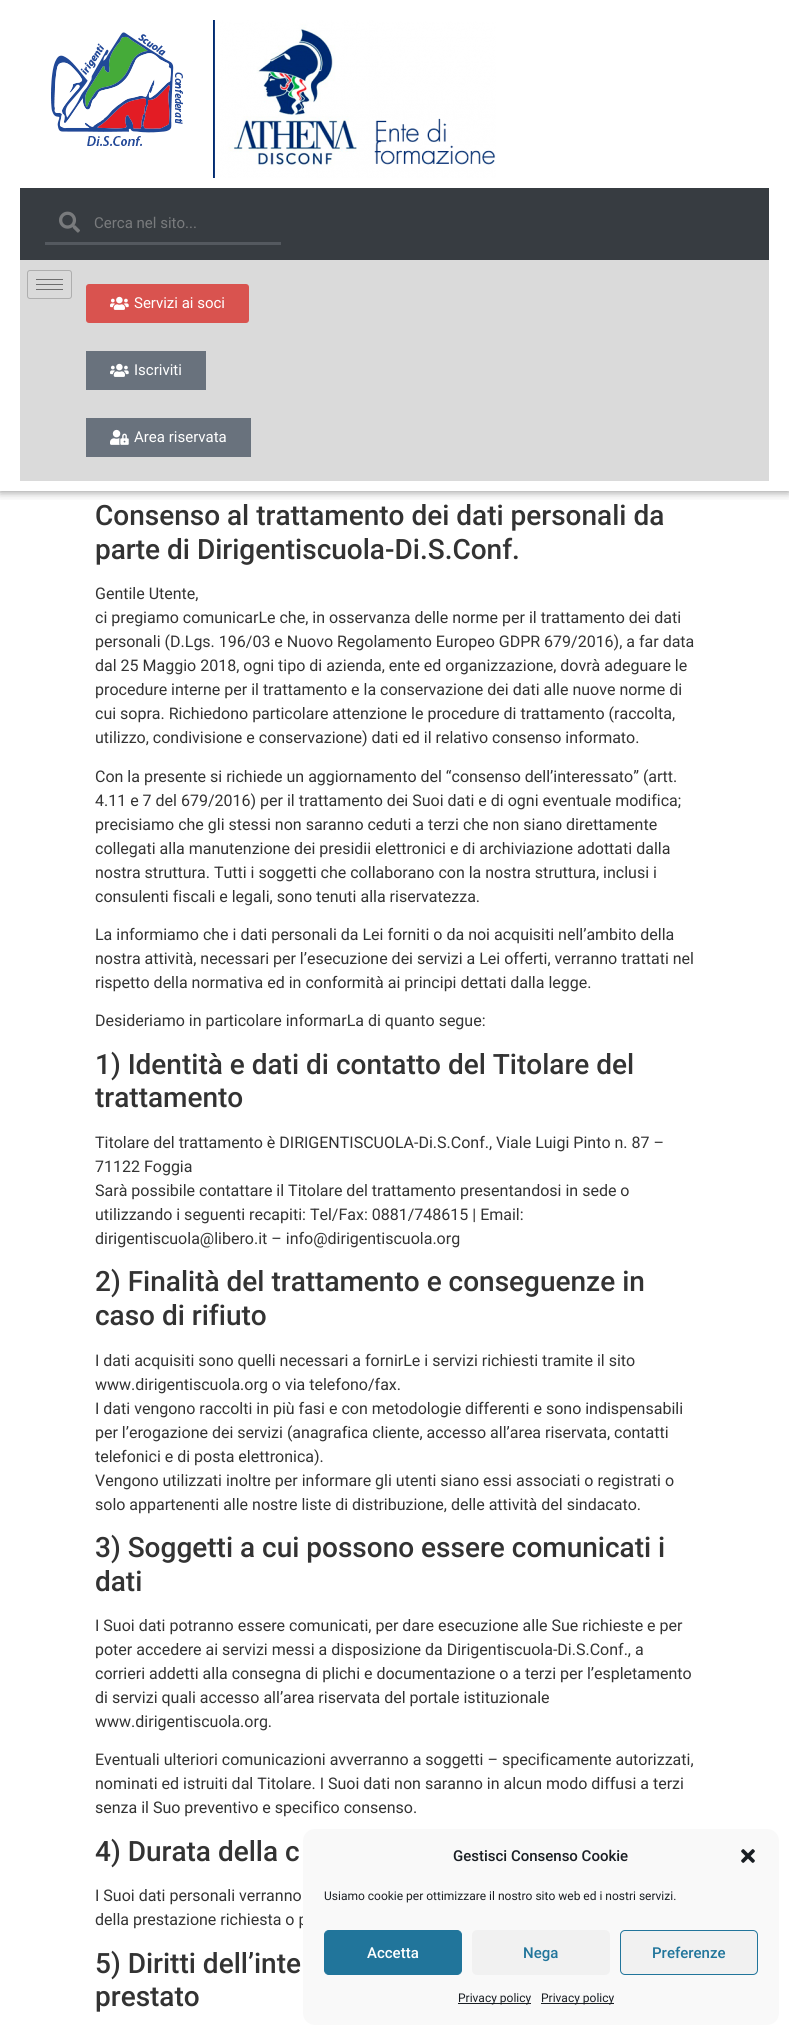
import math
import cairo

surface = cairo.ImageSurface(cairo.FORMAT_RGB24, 789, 2035)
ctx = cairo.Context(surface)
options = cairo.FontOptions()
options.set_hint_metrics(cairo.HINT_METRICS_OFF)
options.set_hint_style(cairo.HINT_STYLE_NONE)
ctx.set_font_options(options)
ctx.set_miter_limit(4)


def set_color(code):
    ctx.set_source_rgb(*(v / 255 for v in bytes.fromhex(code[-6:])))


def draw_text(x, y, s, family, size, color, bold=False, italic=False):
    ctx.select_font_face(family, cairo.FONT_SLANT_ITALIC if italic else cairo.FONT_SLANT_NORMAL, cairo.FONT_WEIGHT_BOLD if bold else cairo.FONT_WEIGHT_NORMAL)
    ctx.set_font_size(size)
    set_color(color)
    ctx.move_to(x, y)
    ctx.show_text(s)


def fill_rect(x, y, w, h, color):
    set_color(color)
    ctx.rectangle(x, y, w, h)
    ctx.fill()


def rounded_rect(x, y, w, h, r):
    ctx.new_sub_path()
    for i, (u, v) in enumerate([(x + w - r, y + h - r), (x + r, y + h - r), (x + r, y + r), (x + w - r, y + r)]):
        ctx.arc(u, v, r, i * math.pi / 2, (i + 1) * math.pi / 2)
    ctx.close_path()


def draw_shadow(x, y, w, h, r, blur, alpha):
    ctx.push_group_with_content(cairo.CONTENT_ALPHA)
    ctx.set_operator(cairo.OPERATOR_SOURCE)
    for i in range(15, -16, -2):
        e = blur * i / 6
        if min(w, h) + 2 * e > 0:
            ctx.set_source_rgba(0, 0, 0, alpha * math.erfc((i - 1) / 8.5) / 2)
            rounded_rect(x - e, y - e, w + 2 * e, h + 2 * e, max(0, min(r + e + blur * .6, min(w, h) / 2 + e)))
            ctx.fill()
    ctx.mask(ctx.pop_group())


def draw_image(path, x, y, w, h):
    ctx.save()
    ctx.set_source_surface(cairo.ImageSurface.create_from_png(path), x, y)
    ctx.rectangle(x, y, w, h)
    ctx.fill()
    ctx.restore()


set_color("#ffffff")
ctx.paint()
ctx.save()
ctx.rectangle(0, 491, 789, 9)
ctx.clip()
set_color("#000000")
draw_shadow(0, 0, 789, 491, 0, 5, 0.5)
ctx.restore()
draw_image("assets/img1.png", 51, 32, 132, 114)
draw_image("assets/img2.png", 213, 20, 283, 158)
fill_rect(20, 188, 749, 72, "#373c41")
fill_rect(45, 242, 236, 3, "#54595f")
draw_image("assets/img3.png", 59, 211, 21, 22)
draw_text(94, 228, "Cerca nel sito...", "Roboto", 15, "#797b7d")
fill_rect(20, 260, 749, 221, "#dadada")
rounded_rect(27.5, 270.5, 44, 28, 2.5)
set_color("#aeaeae")
ctx.set_line_width(1)
ctx.stroke()
fill_rect(36, 279, 27, 1, "#6d6d6d")
fill_rect(36, 284, 27, 1, "#6d6d6d")
fill_rect(36, 289, 27, 1, "#6d6d6d")
set_color("#d9534f")
rounded_rect(86, 284, 163, 39, 3)
ctx.fill()
draw_image("assets/img4.png", 110, 296, 19, 14)
draw_text(134, 308, "Servizi ai soci", "Roboto", 15, "#ffffff")
fill_rect(86, 351, 120, 39, "#69727d")
draw_image("assets/img5.png", 110, 363, 19, 14)
draw_text(134, 375, "Iscriviti", "Roboto", 15, "#ffffff")
fill_rect(86, 418, 165, 39, "#69727d")
draw_image("assets/img6.png", 110, 429, 19, 16)
draw_text(134, 442, "Area riservata", "Roboto", 15, "#ffffff")
draw_text(95, 525, "Consenso al trattamento dei dati personali da", "Roboto Medium", 28, "#333333")
draw_text(95, 559, "parte di Dirigentiscuola-Di.S.Conf.", "Roboto Medium", 28, "#333333")
draw_text(95, 599, "Gentile Utente,", "Roboto", 16, "#333333")
draw_text(95, 623, "ci pregiamo comunicarLe che, in osservanza delle norme per il trattamento dei dati", "Roboto", 16, "#333333")
draw_text(95, 647, "personali (D.Lgs. 196/03 e Nuovo Regolamento Europeo GDPR 679/2016), a far data", "Roboto", 16, "#333333")
draw_text(95, 671, "dal 25 Maggio 2018, ogni tipo di azienda, ente ed organizzazione, dovrà adeguare le", "Roboto", 16, "#333333")
draw_text(95, 695, "procedure interne per il trattamento e la conservazione dei dati alle nuove norme di", "Roboto", 16, "#333333")
draw_text(95, 719, "cui sopra. Richiedono particolare attenzione le procedure di trattamento (raccolta,", "Roboto", 16, "#333333")
draw_text(95, 743, "utilizzo, condivisione e conservazione) dati ed il relativo consenso informato.", "Roboto", 16, "#333333")
draw_text(95, 782, "Con la presente si richiede un aggiornamento del “consenso dell’interessato” (artt.", "Roboto", 16, "#333333")
draw_text(95, 806, "4.11 e 7 del 679/2016) per il trattamento dei Suoi dati e di ogni eventuale modifica;", "Roboto", 16, "#333333")
draw_text(95, 830, "precisiamo che gli stessi non saranno ceduti a terzi che non siano direttamente", "Roboto", 16, "#333333")
draw_text(95, 854, "collegati alla manutenzione dei presidii elettronici e di archiviazione adottati dalla", "Roboto", 16, "#333333")
draw_text(95, 878, "nostra struttura. Tutti i soggetti che collaborano con la nostra struttura, inclusi i", "Roboto", 16, "#333333")
draw_text(95, 902, "consulenti fiscali e legali, sono tenuti alla riservatezza.", "Roboto", 16, "#333333")
draw_text(95, 940, "La informiamo che i dati personali da Lei forniti o da noi acquisiti nell’ambito della", "Roboto", 16, "#333333")
draw_text(95, 964, "nostra attività, necessari per l’esecuzione dei servizi a Lei offerti, verranno trattati nel", "Roboto", 16, "#333333")
draw_text(95, 988, "rispetto della normativa ed in conformità ai principi dettati dalla legge.", "Roboto", 16, "#333333")
draw_text(95, 1026, "Desideriamo in particolare informarLa di quanto segue:", "Roboto", 16, "#333333")
draw_text(95, 1074, "1) Identità e dati di contatto del Titolare del", "Roboto Medium", 28, "#333333")
draw_text(95, 1107, "trattamento", "Roboto Medium", 28, "#333333")
draw_text(95, 1148, "Titolare del trattamento è DIRIGENTISCUOLA-Di.S.Conf., Viale Luigi Pinto n. 87 –", "Roboto", 16, "#333333")
draw_text(95, 1172, "71122 Foggia", "Roboto", 16, "#333333")
draw_text(95, 1196, "Sarà possibile contattare il Titolare del trattamento presentandosi in sede o", "Roboto", 16, "#333333")
draw_text(95, 1220, "utilizzando i seguenti recapiti: Tel/Fax: 0881/748615 | Email:", "Roboto", 16, "#333333")
draw_text(95, 1244, "dirigentiscuola@libero.it – info@dirigentiscuola.org", "Roboto", 16, "#333333")
draw_text(95, 1291, "2) Finalità del trattamento e conseguenze in", "Roboto Medium", 28, "#333333")
draw_text(95, 1325, "caso di rifiuto", "Roboto Medium", 28, "#333333")
draw_text(95, 1366, "I dati acquisiti sono quelli necessari a fornirLe i servizi richiesti tramite il sito", "Roboto", 16, "#333333")
draw_text(95, 1390, "www.dirigentiscuola.org o via telefono/fax.", "Roboto", 16, "#333333")
draw_text(95, 1414, "I dati vengono raccolti in più fasi e con metodologie differenti e sono indispensabili", "Roboto", 16, "#333333")
draw_text(95, 1438, "per l’erogazione dei servizi (anagrafica cliente, accesso all’area riservata, contatti", "Roboto", 16, "#333333")
draw_text(95, 1462, "telefonici e di posta elettronica).", "Roboto", 16, "#333333")
draw_text(95, 1486, "Vengono utilizzati inoltre per informare gli utenti siano essi associati o registrati o", "Roboto", 16, "#333333")
draw_text(95, 1510, "solo appartenenti alle nostre liste di distribuzione, delle attività del sindacato.", "Roboto", 16, "#333333")
draw_text(95, 1557, "3) Soggetti a cui possono essere comunicati i", "Roboto Medium", 28, "#333333")
draw_text(95, 1591, "dati", "Roboto Medium", 28, "#333333")
draw_text(95, 1631, "I Suoi dati potranno essere comunicati, per dare esecuzione alle Sue richieste e per", "Roboto", 16, "#333333")
draw_text(95, 1655, "poter accedere ai servizi messi a disposizione da Dirigentiscuola-Di.S.Conf., a", "Roboto", 16, "#333333")
draw_text(95, 1679, "corrieri addetti alla consegna di plichi e documentazione o a terzi per l’espletamento", "Roboto", 16, "#333333")
draw_text(95, 1703, "di servizi quali accesso all’area riservata del portale istituzionale", "Roboto", 16, "#333333")
draw_text(95, 1727, "www.dirigentiscuola.org.", "Roboto", 16, "#333333")
draw_text(95, 1765, "Eventuali ulteriori comunicazioni avverranno a soggetti – specificamente autorizzati,", "Roboto", 16, "#333333")
draw_text(95, 1789, "nominati ed istruiti dal Titolare. I Suoi dati non saranno in alcun modo diffusi a terzi", "Roboto", 16, "#333333")
draw_text(95, 1813, "senza il Suo preventivo e specifico consenso.", "Roboto", 16, "#333333")
draw_text(95, 1861, "4) Durata della c", "Roboto Medium", 28, "#333333")
draw_text(95, 1901, "I Suoi dati personali verranno", "Roboto", 16, "#333333")
draw_text(95, 1925, "della prestazione richiesta o p", "Roboto", 16, "#333333")
draw_text(95, 1973, "5) Diritti dell’inte", "Roboto Medium", 28, "#333333")
draw_text(95, 2006, "prestato", "Roboto Medium", 28, "#333333")
set_color("#f9f9f9")
rounded_rect(303, 1829, 476, 196, 12)
ctx.fill()
draw_text(453, 1861, "Gestisci Consenso Cookie", "Roboto Medium", 15, "#191e23")
draw_image("assets/img7.png", 741, 1849, 14, 14)
draw_text(324, 1900, "Usiamo cookie per ottimizzare il nostro sito web ed i nostri servizi.", "Roboto", 12, "#191e23")
set_color("#21759b")
rounded_rect(324.5, 1930.5, 137, 44, 4.5)
ctx.fill_preserve()
ctx.stroke()
draw_text(367, 1958, "Accetta", "Roboto Medium", 15, "#ffffff")
set_color("#f1f1f1")
rounded_rect(472, 1930, 138, 45, 5)
ctx.fill()
draw_text(523, 1958, "Nega", "Roboto Medium", 15, "#21759b")
set_color("#f1f1f1")
rounded_rect(620.5, 1930.5, 137, 44, 4.5)
ctx.fill_preserve()
set_color("#21759b")
ctx.stroke()
draw_text(652, 1958, "Preferenze", "Roboto Medium", 15, "#21759b")
fill_rect(458, 2003, 73, 1, "#191e23")
draw_text(458, 2002, "Privacy policy", "Roboto", 12, "#191e23")
fill_rect(541, 2003, 73, 1, "#191e23")
draw_text(541, 2002, "Privacy policy", "Roboto", 12, "#191e23")
surface.write_to_png("output.png")
